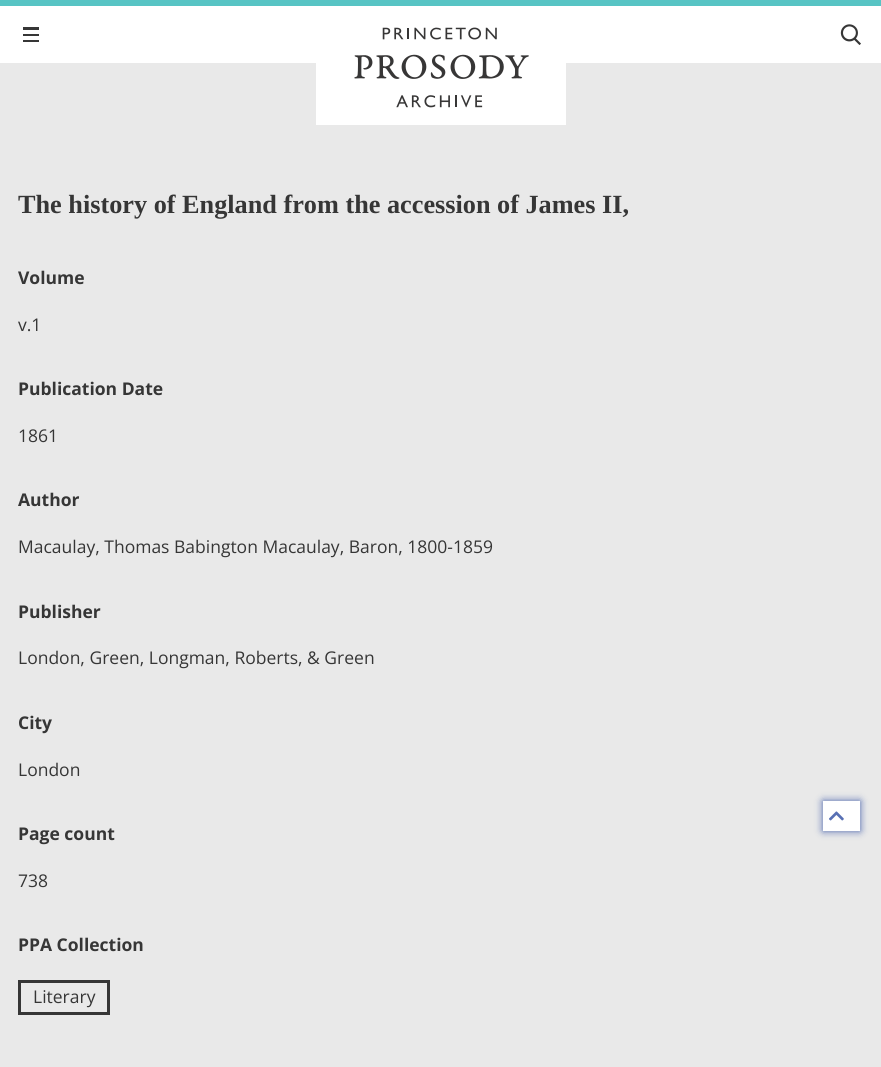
import math
import cairo

surface = cairo.ImageSurface(cairo.FORMAT_RGB24, 881, 1067)
ctx = cairo.Context(surface)
options = cairo.FontOptions()
options.set_hint_metrics(cairo.HINT_METRICS_OFF)
options.set_hint_style(cairo.HINT_STYLE_NONE)
ctx.set_font_options(options)
ctx.set_miter_limit(4)


def set_color(code):
    ctx.set_source_rgb(*(v / 255 for v in bytes.fromhex(code[-6:])))


def draw_text(x, y, s, family, size, color, bold=False, italic=False):
    ctx.select_font_face(family, cairo.FONT_SLANT_ITALIC if italic else cairo.FONT_SLANT_NORMAL, cairo.FONT_WEIGHT_BOLD if bold else cairo.FONT_WEIGHT_NORMAL)
    ctx.set_font_size(size)
    set_color(color)
    ctx.move_to(x, y)
    ctx.show_text(s)


def fill_rect(x, y, w, h, color):
    set_color(color)
    ctx.rectangle(x, y, w, h)
    ctx.fill()


def rounded_rect(x, y, w, h, r):
    ctx.new_sub_path()
    for i, (u, v) in enumerate([(x + w - r, y + h - r), (x + r, y + h - r), (x + r, y + r), (x + w - r, y + r)]):
        ctx.arc(u, v, r, i * math.pi / 2, (i + 1) * math.pi / 2)
    ctx.close_path()


def draw_shadow(x, y, w, h, r, blur, alpha):
    ctx.push_group_with_content(cairo.CONTENT_ALPHA)
    ctx.set_operator(cairo.OPERATOR_SOURCE)
    for i in range(15, -16, -2):
        e = blur * i / 6
        if min(w, h) + 2 * e > 0:
            ctx.set_source_rgba(0, 0, 0, alpha * math.erfc((i - 1) / 8.5) / 2)
            rounded_rect(x - e, y - e, w + 2 * e, h + 2 * e, max(0, min(r + e + blur * .6, min(w, h) / 2 + e)))
            ctx.fill()
    ctx.mask(ctx.pop_group())


def draw_image(path, x, y, w, h):
    ctx.save()
    ctx.set_source_surface(cairo.ImageSurface.create_from_png(path), x, y)
    ctx.rectangle(x, y, w, h)
    ctx.fill()
    ctx.restore()


set_color("#e9e9e9")
ctx.paint()
fill_rect(0, 6, 881, 57, "#ffffff")
fill_rect(0, 0, 881, 6, "#57c4c4")
fill_rect(23, 27, 16, 3, "#363636")
fill_rect(23, 34, 16, 2, "#363636")
fill_rect(23, 40, 16, 2, "#363636")
fill_rect(316, 63, 250, 62, "#ffffff")
draw_image("assets/img1.png", 354, 27, 175, 81)
draw_image("assets/img2.png", 840, 24, 21, 21)
draw_text(18, 213, "The history of England from the accession of James II,", "Liberation Serif", 26.25, "#363636", bold=True)
draw_text(18, 284, "Volume", "Open Sans", 17.5, "#363636", bold=True)
draw_text(18, 331, "v.1", "Open Sans", 17.5, "#363636")
draw_text(18, 395, "Publication Date", "Open Sans", 17.5, "#363636", bold=True)
draw_text(18, 442, "1861", "Open Sans", 17.5, "#363636")
draw_text(18, 506, "Author", "Open Sans", 17.5, "#363636", bold=True)
draw_text(18, 553, "Macaulay, Thomas Babington Macaulay, Baron, 1800-1859", "Open Sans", 17.5, "#363636")
draw_text(18, 618, "Publisher", "Open Sans", 17.5, "#363636", bold=True)
draw_text(18, 664, "London, Green, Longman, Roberts, & Green", "Open Sans", 17.5, "#363636")
draw_text(18, 729, "City", "Open Sans", 17.5, "#363636", bold=True)
draw_text(18, 776, "London", "Open Sans", 17.5, "#363636")
draw_text(18, 840, "Page count", "Open Sans", 17.5, "#363636", bold=True)
draw_text(18, 887, "738", "Open Sans", 17.5, "#363636")
draw_text(18, 951, "PPA Collection", "Open Sans", 17.5, "#363636", bold=True)
ctx.rectangle(19.5, 981.5, 89, 32)
ctx.set_line_width(3)
ctx.stroke()
draw_text(33, 1003, "Literary", "Open Sans", 17.5, "#363636")
set_color("#4661ac")
draw_shadow(823, 801, 37, 30, 0, 4, 1)
fill_rect(823, 801, 37, 30, "#ffffff")
draw_image("assets/img3.png", 829, 811, 15, 10)
surface.write_to_png("output.png")
